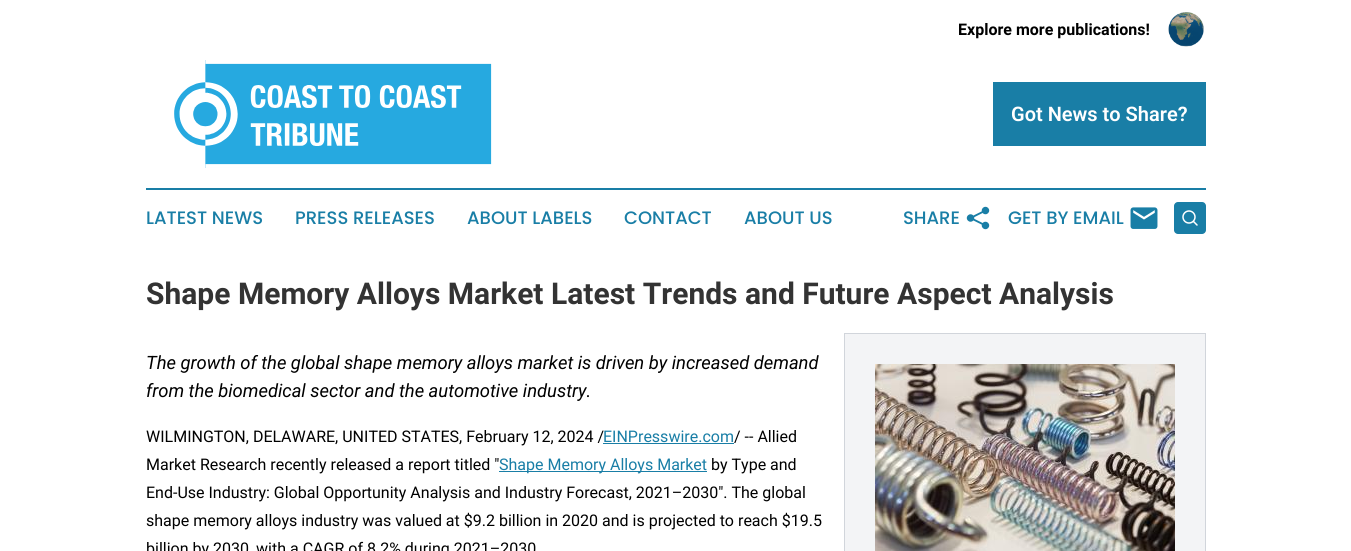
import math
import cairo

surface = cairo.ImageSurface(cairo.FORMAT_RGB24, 1351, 551)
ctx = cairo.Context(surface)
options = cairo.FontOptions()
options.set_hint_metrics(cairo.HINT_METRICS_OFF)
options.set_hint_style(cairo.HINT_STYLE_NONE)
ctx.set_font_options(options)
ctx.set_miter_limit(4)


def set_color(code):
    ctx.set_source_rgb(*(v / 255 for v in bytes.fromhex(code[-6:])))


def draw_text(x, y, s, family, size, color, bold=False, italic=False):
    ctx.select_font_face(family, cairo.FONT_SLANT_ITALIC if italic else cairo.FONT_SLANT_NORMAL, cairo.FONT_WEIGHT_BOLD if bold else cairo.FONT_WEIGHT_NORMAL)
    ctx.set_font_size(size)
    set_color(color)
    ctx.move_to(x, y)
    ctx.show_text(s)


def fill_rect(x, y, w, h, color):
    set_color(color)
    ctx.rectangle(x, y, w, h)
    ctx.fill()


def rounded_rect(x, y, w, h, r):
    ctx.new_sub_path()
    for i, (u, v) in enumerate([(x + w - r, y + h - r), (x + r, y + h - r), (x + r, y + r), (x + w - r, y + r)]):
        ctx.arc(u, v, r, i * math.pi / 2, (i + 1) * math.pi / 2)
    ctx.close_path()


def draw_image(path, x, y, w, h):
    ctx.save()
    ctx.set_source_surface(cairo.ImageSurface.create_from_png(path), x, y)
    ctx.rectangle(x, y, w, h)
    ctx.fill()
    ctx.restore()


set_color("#ffffff")
ctx.paint()
draw_text(958, 35, "Explore more publications!", "Roboto", 16, "#000000", bold=True)
draw_image("assets/img1.png", 1168, 12, 36, 35)
draw_image("assets/img2.png", 174, 60, 318, 108)
fill_rect(993, 82, 213, 64, "#197ea6")
draw_text(1011, 121, "Got News to Share?", "Roboto SemiBold", 20, "#ffffff")
fill_rect(146, 188, 1060, 2, "#197ea6")
draw_text(146, 224, "LATEST NEWS", "Poppins Medium", 18, "#197ea6")
draw_text(295, 224, "PRESS RELEASES", "Poppins Medium", 18, "#197ea6")
draw_text(467, 224, "ABOUT LABELS", "Poppins Medium", 18, "#197ea6")
draw_text(624, 224, "CONTACT", "Poppins Medium", 18, "#197ea6")
draw_text(744, 224, "ABOUT US", "Poppins Medium", 18, "#197ea6")
draw_text(903, 224, "SHARE", "Poppins Medium", 18, "#197ea6")
draw_image("assets/img3.png", 966, 206, 24, 24)
draw_text(1008, 224, "GET BY EMAIL", "Poppins Medium", 18, "#197ea6")
draw_image("assets/img4.png", 1130, 207, 28, 22)
rounded_rect(1174, 202, 32, 32, 4)
ctx.fill()
ctx.arc(1189, 217, 6, 0, 2 * math.pi)
set_color("#ffffff")
ctx.set_line_width(1.5)
ctx.stroke()
ctx.new_path()
ctx.move_to(1197, 225)
ctx.line_to(1193.5, 221.5)
ctx.set_line_cap(cairo.LINE_CAP_ROUND)
ctx.set_line_join(cairo.LINE_JOIN_ROUND)
ctx.stroke()
draw_text(146, 304, "Shape Memory Alloys Market Latest Trends and Future Aspect Analysis", "Roboto", 30, "#333333", bold=True)
draw_text(146, 369, "The growth of the global shape memory alloys market is driven by increased demand", "Roboto", 18.4, "#000000", italic=True)
draw_text(146, 397, "from the biomedical sector and the automotive industry.", "Roboto", 18.4, "#000000", italic=True)
set_color("#f3f4f6")
ctx.rectangle(844.5, 333.5, 361, 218)
ctx.fill_preserve()
set_color("#d1d5db")
ctx.set_line_width(1)
ctx.set_line_cap(cairo.LINE_CAP_BUTT)
ctx.set_line_join(cairo.LINE_JOIN_MITER)
ctx.stroke()
draw_image("assets/img5.png", 875, 364, 300, 187)
draw_text(146, 442, "WILMINGTON, DELAWARE, UNITED STATES, February 12, 2024 /", "Roboto", 16, "#000000")
draw_text(603, 442, "EINPresswire.com", "Roboto", 16, "#197ea6")
fill_rect(603, 443, 131, 1, "#197ea6")
draw_text(734, 442, "/ -- Allied", "Roboto", 16, "#000000")
draw_text(146, 470, "Market Research recently released a report titled \"", "Roboto", 16, "#000000")
fill_rect(499, 471, 208, 1, "#197ea6")
draw_text(499, 470, "Shape Memory Alloys Market", "Roboto", 16, "#197ea6")
draw_text(711, 470, "by Type and", "Roboto", 16, "#000000")
draw_text(146, 498, "End-Use Industry: Global Opportunity Analysis and Industry Forecast, 2021–2030\". The global", "Roboto", 16, "#000000")
draw_text(146, 526, "shape memory alloys industry was valued at $9.2 billion in 2020 and is projected to reach $19.5", "Roboto", 16, "#000000")
draw_text(146, 554, "billion by 2030, with a CAGR of 8.2% during 2021–2030", "Roboto", 16, "#000000")
surface.write_to_png("output.png")
